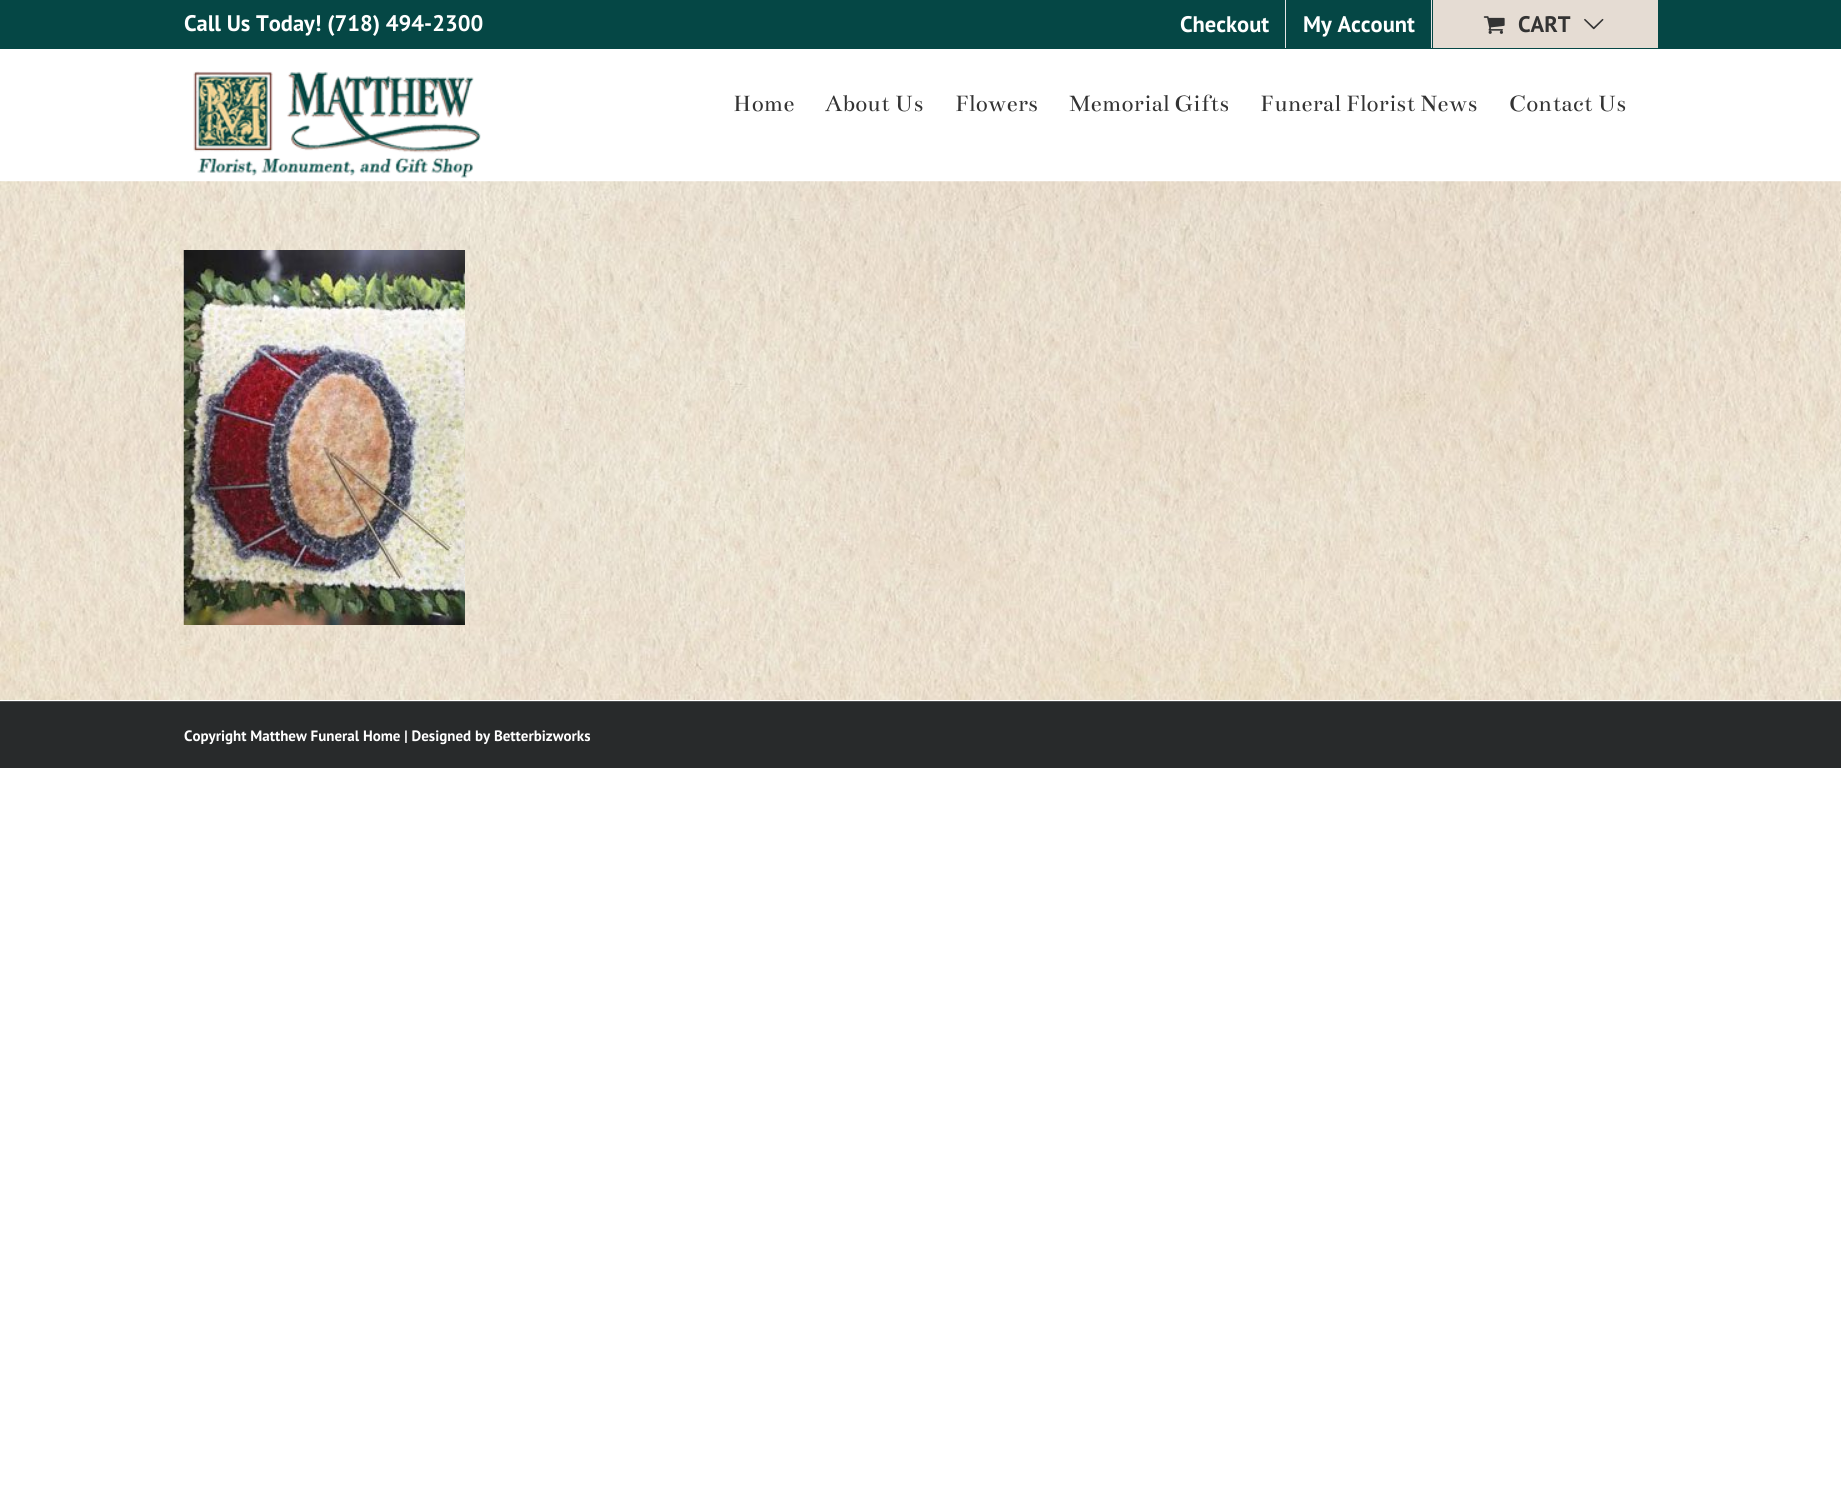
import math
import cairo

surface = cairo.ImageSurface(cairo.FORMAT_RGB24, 1841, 1493)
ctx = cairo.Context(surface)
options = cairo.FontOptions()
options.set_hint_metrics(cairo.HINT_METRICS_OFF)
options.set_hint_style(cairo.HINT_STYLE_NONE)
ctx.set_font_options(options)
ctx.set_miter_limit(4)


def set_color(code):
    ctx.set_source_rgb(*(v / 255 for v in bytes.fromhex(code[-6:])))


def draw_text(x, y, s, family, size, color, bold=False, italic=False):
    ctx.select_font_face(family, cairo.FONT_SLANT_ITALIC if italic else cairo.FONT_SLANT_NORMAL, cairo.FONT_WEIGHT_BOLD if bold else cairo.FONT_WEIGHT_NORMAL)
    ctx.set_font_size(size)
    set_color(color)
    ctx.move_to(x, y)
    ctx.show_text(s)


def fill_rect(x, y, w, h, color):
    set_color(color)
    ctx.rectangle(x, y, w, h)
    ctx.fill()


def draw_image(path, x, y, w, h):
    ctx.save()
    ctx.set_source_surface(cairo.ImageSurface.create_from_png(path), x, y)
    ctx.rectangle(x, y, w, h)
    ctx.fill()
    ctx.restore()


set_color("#ffffff")
ctx.paint()
fill_rect(0, 0, 1841, 49, "#054745")
draw_text(184, 31, "Call Us Today! (718) 494-2300", "PT Sans", 22.5, "#ffffff", bold=True)
draw_text(1180, 32, "Checkout", "PT Sans", 22.5, "#ffffff", bold=True)
fill_rect(1285, 0, 1, 48, "#e5e5e5")
draw_text(1303, 32, "My Account", "PT Sans", 22.5, "#ffffff", bold=True)
fill_rect(1431, 0, 1, 48, "#e5e5e5")
fill_rect(1433, 0, 225, 48, "#e5dcd3")
draw_image("assets/img1.png", 1483, 16, 22, 18)
draw_text(1518, 32, "CART", "PT Sans", 22.5, "#333333", bold=True)
draw_image("assets/img2.png", 1584, 18, 20, 12)
draw_image("assets/img3.png", 193, 71, 288, 107)
draw_text(733, 111, "Home", "Bentham", 25, "#333333")
draw_text(825, 111, "About Us", "Bentham", 25, "#333333")
draw_text(955, 111, "Flowers", "Bentham", 25, "#333333")
draw_text(1069, 111, "Memorial Gifts", "Bentham", 25, "#333333")
draw_text(1260, 111, "Funeral Florist News", "Bentham", 25, "#333333")
draw_text(1509, 111, "Contact Us", "Bentham", 25, "#333333")
draw_image("assets/img4.png", 0, 181, 1841, 519)
draw_image("assets/img5.png", 183, 250, 282, 375)
fill_rect(0, 702, 1841, 66, "#282a2b")
fill_rect(0, 701, 1841, 1, "#4b4c4d")
draw_text(184, 741, "Copyright Matthew Funeral Home | Designed by Betterbizworks", "PT Sans", 15, "#ffffff", bold=True)
surface.write_to_png("output.png")
